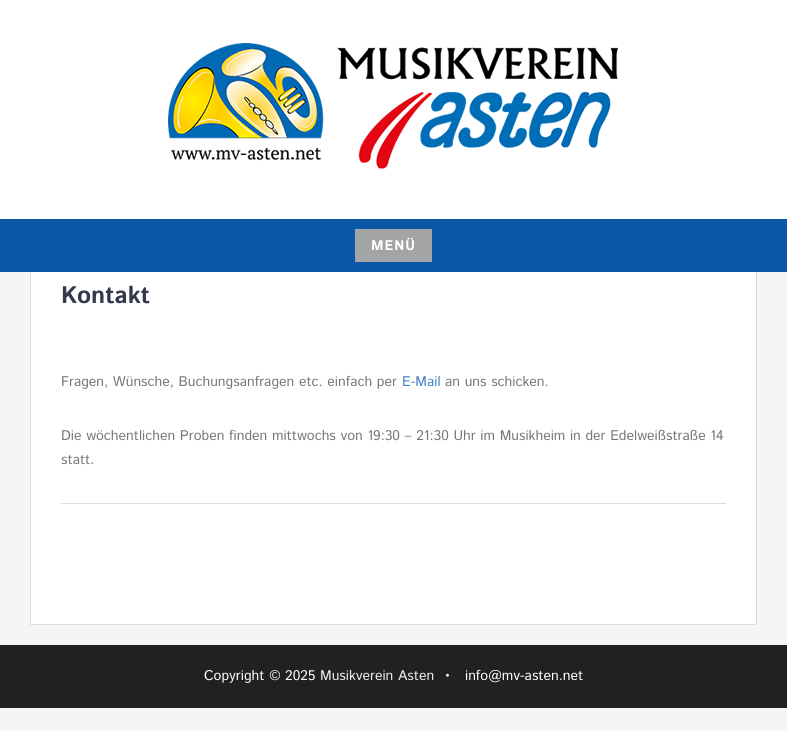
import math
import cairo

surface = cairo.ImageSurface(cairo.FORMAT_RGB24, 787, 731)
ctx = cairo.Context(surface)
options = cairo.FontOptions()
options.set_hint_metrics(cairo.HINT_METRICS_OFF)
options.set_hint_style(cairo.HINT_STYLE_NONE)
ctx.set_font_options(options)
ctx.set_miter_limit(4)


def set_color(code):
    ctx.set_source_rgb(*(v / 255 for v in bytes.fromhex(code[-6:])))


def draw_text(x, y, s, family, size, color, bold=False, italic=False):
    ctx.select_font_face(family, cairo.FONT_SLANT_ITALIC if italic else cairo.FONT_SLANT_NORMAL, cairo.FONT_WEIGHT_BOLD if bold else cairo.FONT_WEIGHT_NORMAL)
    ctx.set_font_size(size)
    set_color(color)
    ctx.move_to(x, y)
    ctx.show_text(s)


def draw_spaced(x, y, s, letter, word):
    ctx.move_to(x, y)
    for ch in s:
        ctx.show_text(ch)
        ctx.rel_move_to(letter + word * (ch == ' '), 0)


def fill_rect(x, y, w, h, color):
    set_color(color)
    ctx.rectangle(x, y, w, h)
    ctx.fill()


def draw_image(path, x, y, w, h):
    ctx.save()
    ctx.set_source_surface(cairo.ImageSurface.create_from_png(path), x, y)
    ctx.rectangle(x, y, w, h)
    ctx.fill()
    ctx.restore()


set_color("#f5f5f5")
ctx.paint()
fill_rect(0, 0, 787, 219, "#ffffff")
draw_image("assets/img1.png", 168, 43, 450, 126)
fill_rect(31, 272, 725, 352, "#ffffff")
ctx.rectangle(30.5, 235.5, 726, 389)
set_color("#dddddd")
ctx.set_line_width(1)
ctx.stroke()
fill_rect(0, 219, 787, 53, "#0a57a8")
fill_rect(355, 229, 77, 33, "#a3a4a5")
ctx.select_font_face("Istok Web", cairo.FONT_SLANT_NORMAL, cairo.FONT_WEIGHT_BOLD)
ctx.set_font_size(14)
set_color("#ffffff")
draw_spaced(371, 250, "MENÜ", 1, 0)
draw_text(61, 303, "Kontakt", "Istok Web", 24, "#33384a", bold=True)
fill_rect(61, 503, 665, 1, "#dddddd")
draw_text(61, 386, "Fragen, Wünsche, Buchungsanfragen etc. einfach per", "Istok Web", 14, "#777777")
draw_text(402, 386, "E-Mail", "Istok Web", 14, "#4281c3")
draw_text(445, 386, "an uns schicken.", "Istok Web", 14, "#777777")
draw_text(61, 440, "Die wöchentlichen Proben finden mittwochs von 19:30 – 21:30 Uhr im Musikheim in der Edelweißstraße 14", "Istok Web", 14, "#777777")
draw_text(61, 464, "statt.", "Istok Web", 14, "#777777")
fill_rect(0, 645, 787, 63, "#212121")
draw_text(204, 680, "Copyright © 2025", "Istok Web", 14, "#ffffff")
draw_text(320, 680, "Musikverein Asten", "Istok Web", 14, "#eeeeee")
draw_text(444, 680, "•   info@mv-asten.net", "Istok Web", 14, "#ffffff")
surface.write_to_png("output.png")
